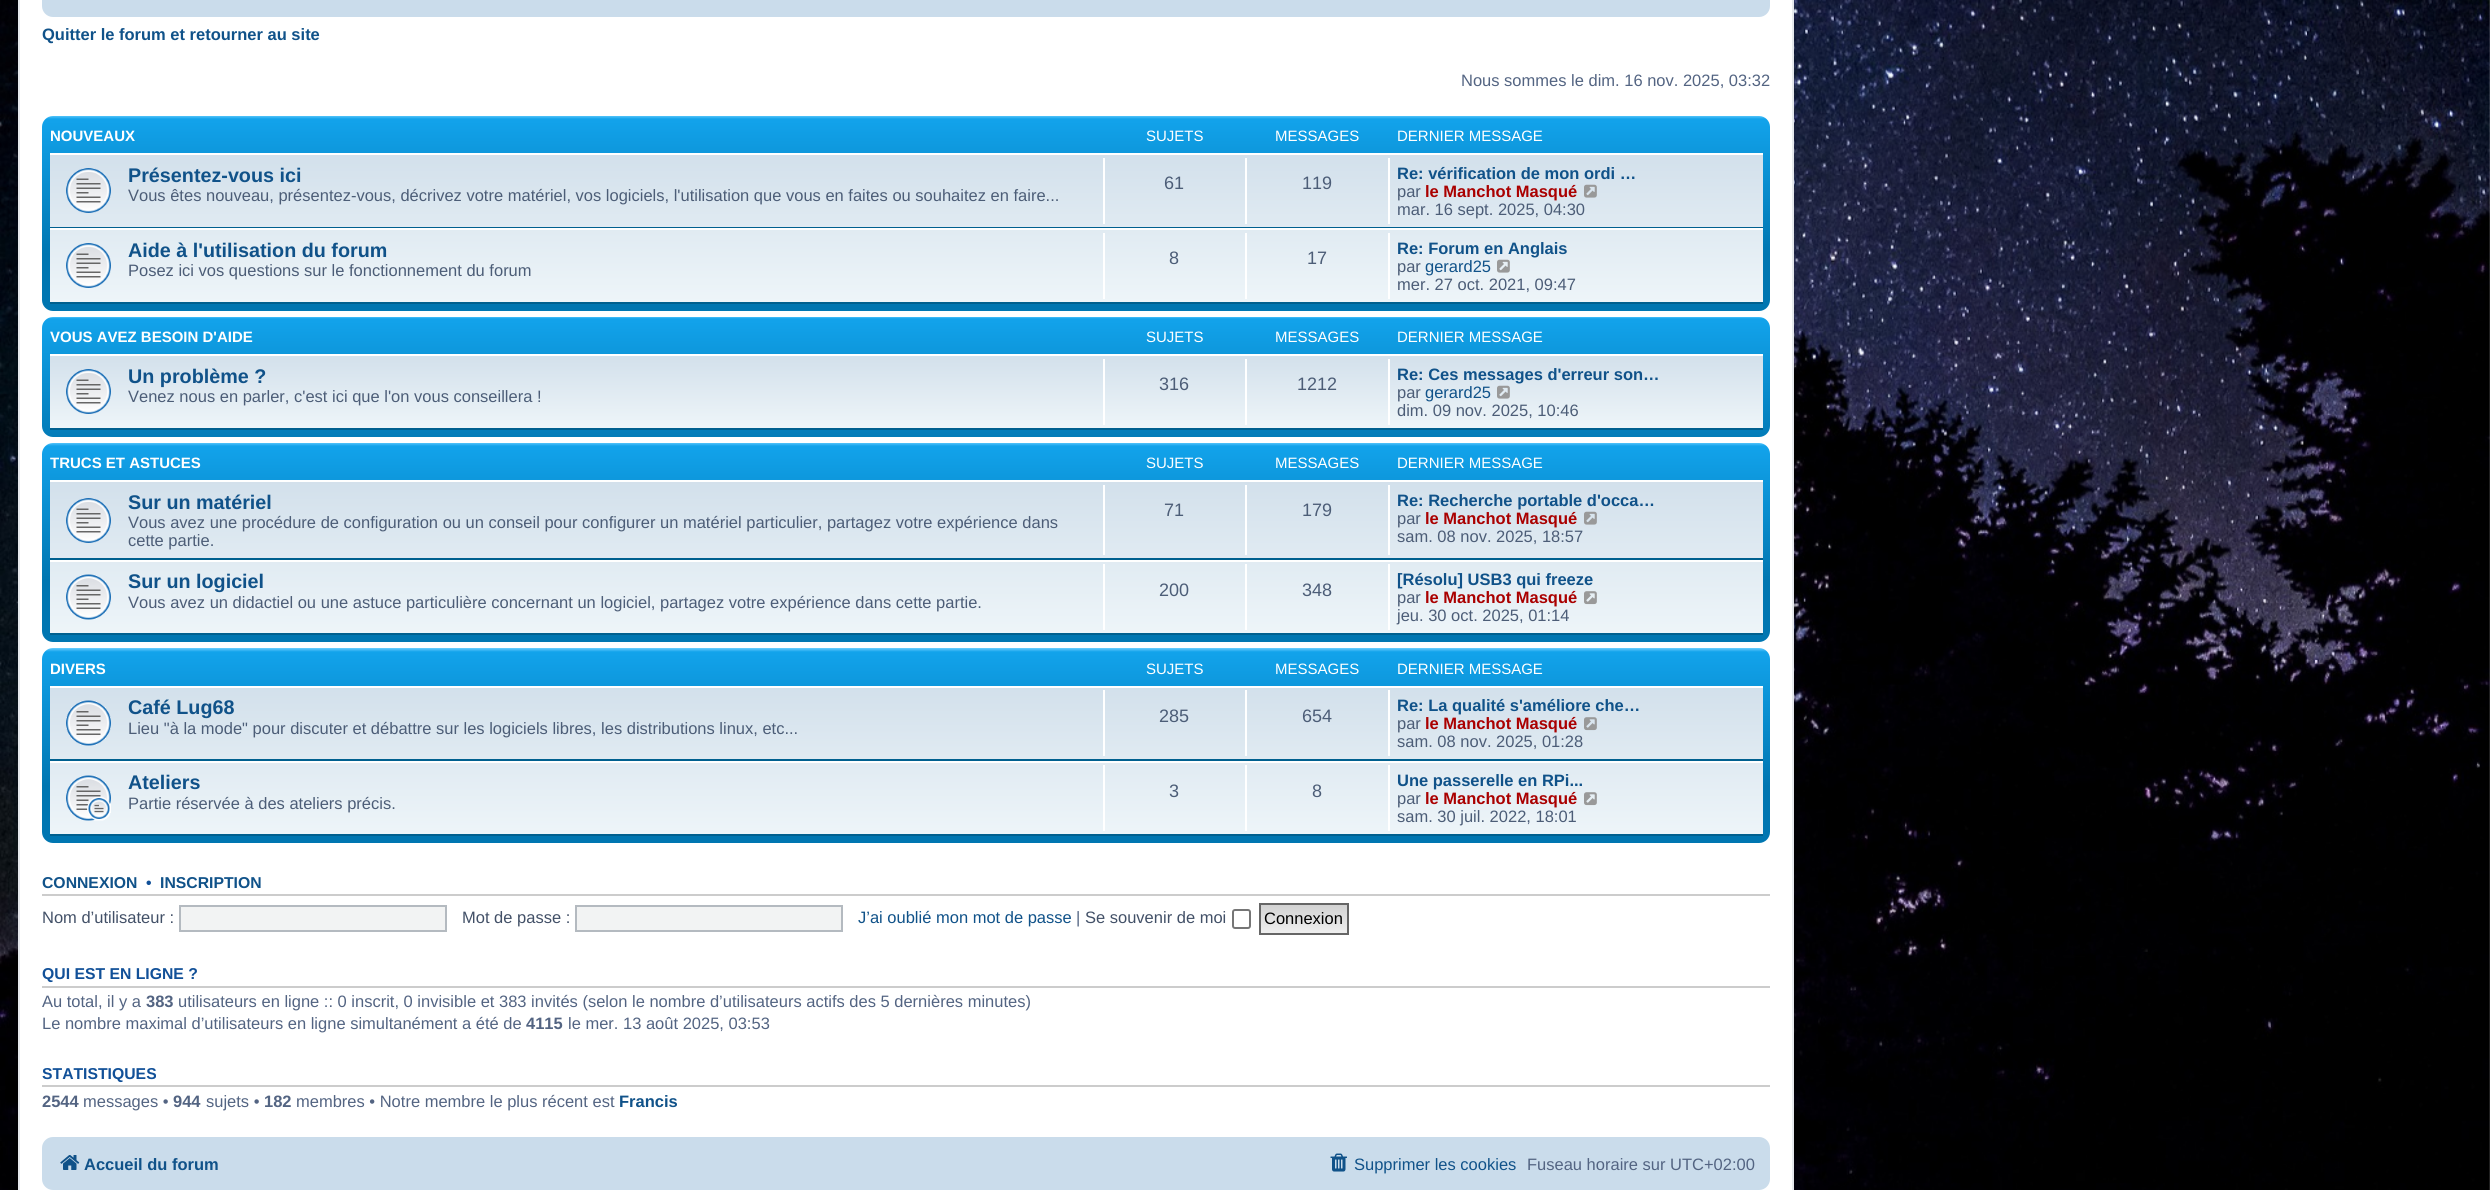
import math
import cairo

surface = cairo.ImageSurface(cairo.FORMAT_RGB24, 2490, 1190)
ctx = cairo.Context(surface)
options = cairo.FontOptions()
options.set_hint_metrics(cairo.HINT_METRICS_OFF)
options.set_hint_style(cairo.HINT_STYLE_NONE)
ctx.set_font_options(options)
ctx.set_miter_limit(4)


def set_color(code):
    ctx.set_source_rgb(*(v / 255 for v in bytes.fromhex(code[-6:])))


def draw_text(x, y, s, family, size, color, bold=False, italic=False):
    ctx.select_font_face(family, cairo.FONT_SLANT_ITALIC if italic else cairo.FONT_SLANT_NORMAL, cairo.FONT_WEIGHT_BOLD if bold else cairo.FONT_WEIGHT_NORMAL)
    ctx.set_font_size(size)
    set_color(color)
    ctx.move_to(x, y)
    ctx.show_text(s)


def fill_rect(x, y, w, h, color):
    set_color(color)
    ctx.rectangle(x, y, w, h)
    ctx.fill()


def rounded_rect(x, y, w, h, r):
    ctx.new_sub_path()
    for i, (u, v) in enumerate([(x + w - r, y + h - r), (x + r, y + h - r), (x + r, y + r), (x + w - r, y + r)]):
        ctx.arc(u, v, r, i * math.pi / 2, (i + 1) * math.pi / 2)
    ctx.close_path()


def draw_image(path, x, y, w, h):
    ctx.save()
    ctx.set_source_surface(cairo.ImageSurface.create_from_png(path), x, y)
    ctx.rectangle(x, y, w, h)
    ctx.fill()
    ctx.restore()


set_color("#ffffff")
ctx.paint()
draw_image("assets/img1.png", 0, 0, 2490, 1190)
set_color("#ffffff")
ctx.rectangle(19, -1, 1774, 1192)
ctx.fill_preserve()
set_color("#e6e9ed")
ctx.stroke()
set_color("#cadceb")
rounded_rect(42, -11, 1728, 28, 11)
ctx.fill()
draw_text(42, 40, "Quitter le forum et retourner au site", "Liberation Sans", 16.5, "#105289", bold=True)
draw_text(1461, 86, "Nous sommes le dim. 16 nov. 2025, 03:32", "Liberation Sans", 16.5, "#536482")
gradient = cairo.LinearGradient(906, 115, 906, 311)
gradient.add_color_stop_rgba(0, 0.416, 0.808, 1, 1)
gradient.add_color_stop_rgba(0.02, 0.071, 0.639, 0.922, 1)
gradient.add_color_stop_rgba(0.71, 0, 0.463, 0.694, 1)
gradient.add_color_stop_rgba(1, 0, 0.463, 0.694, 1)
ctx.set_source(gradient)
rounded_rect(42, 116, 1728, 195, 11)
ctx.fill()
draw_text(50, 141, "NOUVEAUX", "Liberation Sans", 15, "#ffffff", bold=True)
draw_text(1146, 141, "SUJETS", "Liberation Sans", 15, "#ffffff")
draw_text(1275, 141, "MESSAGES", "Liberation Sans", 15, "#ffffff")
draw_text(1397, 141, "DERNIER MESSAGE", "Liberation Sans", 15, "#ffffff")
gradient = cairo.LinearGradient(906, 153, 906, 303)
gradient.add_color_stop_rgba(0, 0.824, 0.878, 0.922, 1)
gradient.add_color_stop_rgba(1, 0.933, 0.961, 0.976, 1)
ctx.set_source(gradient)
ctx.rectangle(50, 155, 1713, 147)
ctx.fill()
fill_rect(50, 153, 1713, 2, "#ffffff")
fill_rect(50, 227, 1713, 1, "#00608f")
draw_image("assets/img2.png", 66, 168, 45, 45)
draw_text(128, 182, "Présentez-vous ici", "Liberation Sans", 19.75, "#105289", bold=True)
draw_text(128, 201, "Vous êtes nouveau, présentez-vous, décrivez votre matériel, vos logiciels, l'utilisation que vous en faites ou souhaitez en faire...", "Liberation Sans", 16.5, "#4c5d77")
fill_rect(1103, 158, 2, 66, "#ffffff")
draw_text(1164, 189, "61", "Liberation Sans", 18, "#4c5d77")
fill_rect(1245, 158, 2, 66, "#ffffff")
draw_text(1302, 189, "119", "Liberation Sans", 18, "#4c5d77")
fill_rect(1388, 158, 2, 66, "#ffffff")
draw_text(1397, 179, "Re: vérification de mon ordi …", "Liberation Sans", 16.5, "#105289", bold=True)
draw_text(1397, 197, "par", "Liberation Sans", 16.5, "#4c5d77")
draw_text(1425, 197, "le Manchot Masqué", "Liberation Sans", 16.5, "#aa0000", bold=True)
draw_image("assets/img3.png", 1584, 184, 13, 14)
draw_text(1397, 215, "mar. 16 sept. 2025, 04:30", "Liberation Sans", 16.5, "#4c5d77")
fill_rect(50, 228, 1713, 2, "#ffffff")
fill_rect(50, 302, 1713, 2, "#00608f")
draw_image("assets/img4.png", 66, 243, 45, 45)
draw_text(128, 257, "Aide à l'utilisation du forum", "Liberation Sans", 19.75, "#105289", bold=True)
draw_text(128, 276, "Posez ici vos questions sur le fonctionnement du forum", "Liberation Sans", 16.5, "#4c5d77")
fill_rect(1103, 233, 2, 66, "#ffffff")
draw_text(1169, 264, "8", "Liberation Sans", 18, "#4c5d77")
fill_rect(1245, 233, 2, 66, "#ffffff")
draw_text(1307, 264, "17", "Liberation Sans", 18, "#4c5d77")
fill_rect(1388, 233, 2, 66, "#ffffff")
draw_text(1397, 254, "Re: Forum en Anglais", "Liberation Sans", 16.5, "#105289", bold=True)
draw_text(1397, 272, "par", "Liberation Sans", 16.5, "#4c5d77")
draw_text(1425, 272, "gerard25", "Liberation Sans", 16.5, "#105289")
draw_image("assets/img5.png", 1497, 259, 13, 14)
draw_text(1397, 290, "mer. 27 oct. 2021, 09:47", "Liberation Sans", 16.5, "#4c5d77")
gradient = cairo.LinearGradient(906, 316, 906, 454)
gradient.add_color_stop_rgba(0, 0.416, 0.808, 1, 1)
gradient.add_color_stop_rgba(0.02, 0.071, 0.639, 0.922, 1)
gradient.add_color_stop_rgba(1, 0, 0.463, 0.694, 1)
ctx.set_source(gradient)
rounded_rect(42, 317, 1728, 120, 11)
ctx.fill()
draw_text(50, 342, "VOUS AVEZ BESOIN D'AIDE", "Liberation Sans", 15, "#ffffff", bold=True)
draw_text(1146, 342, "SUJETS", "Liberation Sans", 15, "#ffffff")
draw_text(1275, 342, "MESSAGES", "Liberation Sans", 15, "#ffffff")
draw_text(1397, 342, "DERNIER MESSAGE", "Liberation Sans", 15, "#ffffff")
gradient = cairo.LinearGradient(906, 354, 906, 429)
gradient.add_color_stop_rgba(0, 0.824, 0.878, 0.922, 1)
gradient.add_color_stop_rgba(1, 0.933, 0.961, 0.976, 1)
ctx.set_source(gradient)
ctx.rectangle(50, 356, 1713, 72)
ctx.fill()
fill_rect(50, 354, 1713, 2, "#ffffff")
fill_rect(50, 428, 1713, 2, "#00608f")
draw_image("assets/img6.png", 66, 369, 45, 45)
draw_text(128, 383, "Un problème ?", "Liberation Sans", 19.75, "#105289", bold=True)
draw_text(128, 402, "Venez nous en parler, c'est ici que l'on vous conseillera !", "Liberation Sans", 16.5, "#4c5d77")
fill_rect(1103, 359, 2, 66, "#ffffff")
draw_text(1159, 390, "316", "Liberation Sans", 18, "#4c5d77")
fill_rect(1245, 359, 2, 66, "#ffffff")
draw_text(1297, 390, "1212", "Liberation Sans", 18, "#4c5d77")
fill_rect(1388, 359, 2, 66, "#ffffff")
draw_text(1397, 380, "Re: Ces messages d'erreur son…", "Liberation Sans", 16.5, "#105289", bold=True)
draw_text(1397, 398, "par", "Liberation Sans", 16.5, "#4c5d77")
draw_text(1425, 398, "gerard25", "Liberation Sans", 16.5, "#105289")
draw_image("assets/img7.png", 1497, 385, 13, 14)
draw_text(1397, 416, "dim. 09 nov. 2025, 10:46", "Liberation Sans", 16.5, "#4c5d77")
gradient = cairo.LinearGradient(906, 442, 906, 642)
gradient.add_color_stop_rgba(0, 0.416, 0.808, 1, 1)
gradient.add_color_stop_rgba(0.02, 0.071, 0.639, 0.922, 1)
gradient.add_color_stop_rgba(0.69, 0, 0.463, 0.694, 1)
gradient.add_color_stop_rgba(1, 0, 0.463, 0.694, 1)
ctx.set_source(gradient)
rounded_rect(42, 443, 1728, 199, 11)
ctx.fill()
ctx.save()
ctx.rectangle(50, 450, 1713, 30)
ctx.clip()
draw_text(50, 468, "TRUCS ET ASTUCES", "Liberation Sans", 15, "#ffffff", bold=True)
ctx.restore()
draw_text(1146, 468, "SUJETS", "Liberation Sans", 15, "#ffffff")
draw_text(1275, 468, "MESSAGES", "Liberation Sans", 15, "#ffffff")
draw_text(1397, 468, "DERNIER MESSAGE", "Liberation Sans", 15, "#ffffff")
gradient = cairo.LinearGradient(906, 480, 906, 635)
gradient.add_color_stop_rgba(0, 0.824, 0.878, 0.922, 1)
gradient.add_color_stop_rgba(1, 0.933, 0.961, 0.976, 1)
ctx.set_source(gradient)
ctx.rectangle(50, 482, 1713, 151)
ctx.fill()
fill_rect(50, 480, 1713, 2, "#ffffff")
fill_rect(50, 558, 1713, 2, "#00608f")
draw_image("assets/img8.png", 66, 498, 45, 45)
draw_text(128, 509, "Sur un matériel", "Liberation Sans", 19.75, "#105289", bold=True)
draw_text(128, 528, "Vous avez une procédure de configuration ou un conseil pour configurer un matériel particulier, partagez votre expérience dans", "Liberation Sans", 16.5, "#4c5d77")
draw_text(128, 546, "cette partie.", "Liberation Sans", 16.5, "#4c5d77")
fill_rect(1103, 485, 2, 70, "#ffffff")
draw_text(1164, 516, "71", "Liberation Sans", 18, "#4c5d77")
fill_rect(1245, 485, 2, 70, "#ffffff")
draw_text(1302, 516, "179", "Liberation Sans", 18, "#4c5d77")
fill_rect(1388, 485, 2, 70, "#ffffff")
draw_text(1397, 506, "Re: Recherche portable d'occa…", "Liberation Sans", 16.5, "#105289", bold=True)
draw_text(1397, 524, "par", "Liberation Sans", 16.5, "#4c5d77")
draw_text(1425, 524, "le Manchot Masqué", "Liberation Sans", 16.5, "#aa0000", bold=True)
draw_image("assets/img9.png", 1584, 511, 13, 14)
draw_text(1397, 542, "sam. 08 nov. 2025, 18:57", "Liberation Sans", 16.5, "#4c5d77")
fill_rect(50, 560, 1713, 2, "#ffffff")
fill_rect(50, 633, 1713, 2, "#00608f")
draw_image("assets/img10.png", 66, 574, 45, 46)
draw_text(128, 588, "Sur un logiciel", "Liberation Sans", 19.75, "#105289", bold=True)
draw_text(128, 608, "Vous avez un didactiel ou une astuce particulière concernant un logiciel, partagez votre expérience dans cette partie.", "Liberation Sans", 16.5, "#4c5d77")
fill_rect(1103, 564, 2, 66, "#ffffff")
draw_text(1159, 596, "200", "Liberation Sans", 18, "#4c5d77")
fill_rect(1245, 564, 2, 66, "#ffffff")
draw_text(1302, 596, "348", "Liberation Sans", 18, "#4c5d77")
fill_rect(1388, 564, 2, 66, "#ffffff")
draw_text(1397, 585, "[Résolu] USB3 qui freeze", "Liberation Sans", 16.5, "#105289", bold=True)
draw_text(1397, 603, "par", "Liberation Sans", 16.5, "#4c5d77")
draw_text(1425, 603, "le Manchot Masqué", "Liberation Sans", 16.5, "#aa0000", bold=True)
draw_image("assets/img11.png", 1584, 591, 13, 14)
draw_text(1397, 621, "jeu. 30 oct. 2025, 01:14", "Liberation Sans", 16.5, "#4c5d77")
gradient = cairo.LinearGradient(906, 648, 906, 843)
gradient.add_color_stop_rgba(0, 0.416, 0.808, 1, 1)
gradient.add_color_stop_rgba(0.02, 0.071, 0.639, 0.922, 1)
gradient.add_color_stop_rgba(0.71, 0, 0.463, 0.694, 1)
gradient.add_color_stop_rgba(1, 0, 0.463, 0.694, 1)
ctx.set_source(gradient)
rounded_rect(42, 648, 1728, 195, 11)
ctx.fill()
draw_text(50, 674, "DIVERS", "Liberation Sans", 15, "#ffffff", bold=True)
draw_text(1146, 674, "SUJETS", "Liberation Sans", 15, "#ffffff")
draw_text(1275, 674, "MESSAGES", "Liberation Sans", 15, "#ffffff")
draw_text(1397, 674, "DERNIER MESSAGE", "Liberation Sans", 15, "#ffffff")
gradient = cairo.LinearGradient(906, 685, 906, 836)
gradient.add_color_stop_rgba(0, 0.824, 0.878, 0.922, 1)
gradient.add_color_stop_rgba(1, 0.933, 0.961, 0.976, 1)
ctx.set_source(gradient)
ctx.rectangle(50, 688, 1713, 146)
ctx.fill()
fill_rect(50, 686, 1713, 2, "#ffffff")
fill_rect(50, 759, 1713, 2, "#00608f")
draw_image("assets/img12.png", 66, 700, 45, 46)
draw_text(128, 714, "Café Lug68", "Liberation Sans", 19.75, "#105289", bold=True)
draw_text(128, 734, "Lieu \"à la mode\" pour discuter et débattre sur les logiciels libres, les distributions linux, etc...", "Liberation Sans", 16.5, "#4c5d77")
fill_rect(1103, 690, 2, 66, "#ffffff")
draw_text(1159, 722, "285", "Liberation Sans", 18, "#4c5d77")
fill_rect(1245, 690, 2, 66, "#ffffff")
draw_text(1302, 722, "654", "Liberation Sans", 18, "#4c5d77")
fill_rect(1388, 690, 2, 66, "#ffffff")
draw_text(1397, 711, "Re: La qualité s'améliore che…", "Liberation Sans", 16.5, "#105289", bold=True)
draw_text(1397, 729, "par", "Liberation Sans", 16.5, "#4c5d77")
draw_text(1425, 729, "le Manchot Masqué", "Liberation Sans", 16.5, "#aa0000", bold=True)
draw_image("assets/img13.png", 1584, 717, 13, 14)
draw_text(1397, 747, "sam. 08 nov. 2025, 01:28", "Liberation Sans", 16.5, "#4c5d77")
fill_rect(50, 761, 1713, 2, "#ffffff")
fill_rect(50, 834, 1713, 2, "#00608f")
draw_image("assets/img14.png", 66, 775, 45, 46)
draw_text(128, 789, "Ateliers", "Liberation Sans", 19.75, "#105289", bold=True)
draw_text(128, 809, "Partie réservée à des ateliers précis.", "Liberation Sans", 16.5, "#4c5d77")
fill_rect(1103, 765, 2, 66, "#ffffff")
draw_text(1169, 797, "3", "Liberation Sans", 18, "#4c5d77")
fill_rect(1245, 765, 2, 66, "#ffffff")
draw_text(1312, 797, "8", "Liberation Sans", 18, "#4c5d77")
fill_rect(1388, 765, 2, 66, "#ffffff")
draw_text(1397, 786, "Une passerelle en RPi...", "Liberation Sans", 16.5, "#105289", bold=True)
draw_text(1397, 804, "par", "Liberation Sans", 16.5, "#4c5d77")
draw_text(1425, 804, "le Manchot Masqué", "Liberation Sans", 16.5, "#aa0000", bold=True)
draw_image("assets/img15.png", 1584, 792, 13, 14)
draw_text(1397, 822, "sam. 30 juil. 2022, 18:01", "Liberation Sans", 16.5, "#4c5d77")
fill_rect(42, 894, 1728, 2, "#cccccc")
draw_text(42, 888, "CONNEXION", "Liberation Sans", 15.75, "#105289", bold=True)
draw_text(146, 888, "•", "Liberation Sans", 15.75, "#115098", bold=True)
draw_text(160, 888, "INSCRIPTION", "Liberation Sans", 15.75, "#105289", bold=True)
draw_text(42, 923, "Nom d’utilisateur :", "Liberation Sans", 16.5, "#425067")
set_color("#f2f3f3")
ctx.rectangle(180, 906, 266, 25)
ctx.fill_preserve()
set_color("#b4bac0")
ctx.stroke()
draw_text(462, 923, "Mot de passe :", "Liberation Sans", 16.5, "#425067")
set_color("#f2f3f3")
ctx.rectangle(576, 906, 266, 25)
ctx.fill_preserve()
set_color("#b4bac0")
ctx.stroke()
draw_text(858, 923, "J’ai oublié mon mot de passe", "Liberation Sans", 16.5, "#105289")
draw_text(1076, 923, "|", "Liberation Sans", 16.5, "#536482")
draw_text(1085, 923, "Se souvenir de moi", "Liberation Sans", 16.5, "#425067")
rounded_rect(1233, 910, 17, 18, 2)
set_color("#767676")
ctx.stroke()
gradient = cairo.LinearGradient(1304, 905, 1304, 933)
gradient.add_color_stop_rgba(0, 0.824, 0.824, 0.824, 1)
gradient.add_color_stop_rgba(1, 0.937, 0.937, 0.937, 1)
ctx.set_source(gradient)
ctx.rectangle(1261, 905, 86, 28)
ctx.fill()
ctx.rectangle(1260, 904, 88, 30)
set_color("#666666")
ctx.stroke()
draw_text(1264, 924, "Connexion", "Liberation Sans", 16.5, "#000000")
fill_rect(42, 986, 1728, 2, "#cccccc")
draw_text(42, 979, "QUI EST EN LIGNE ?", "Liberation Sans", 15.75, "#115098", bold=True)
draw_text(42, 1007, "Au total, il y a", "Liberation Sans", 16.5, "#536482")
draw_text(146, 1007, "383", "Liberation Sans", 16.5, "#536482", bold=True)
draw_text(178, 1007, "utilisateurs en ligne :: 0 inscrit, 0 invisible et 383 invités (selon le nombre d’utilisateurs actifs des 5 dernières minutes)", "Liberation Sans", 16.5, "#536482")
draw_text(42, 1029, "Le nombre maximal d’utilisateurs en ligne simultanément a été de", "Liberation Sans", 16.5, "#536482")
draw_text(526, 1029, "4115", "Liberation Sans", 16.5, "#536482", bold=True)
draw_text(568, 1029, "le mer. 13 août 2025, 03:53", "Liberation Sans", 16.5, "#536482")
fill_rect(42, 1085, 1728, 2, "#cccccc")
draw_text(42, 1079, "STATISTIQUES", "Liberation Sans", 15.75, "#115098", bold=True)
draw_text(42, 1107, "2544", "Liberation Sans", 16.5, "#536482", bold=True)
draw_text(83, 1107, "messages •", "Liberation Sans", 16.5, "#536482")
draw_text(173, 1107, "944", "Liberation Sans", 16.5, "#536482", bold=True)
draw_text(206, 1107, "sujets •", "Liberation Sans", 16.5, "#536482")
draw_text(264, 1107, "182", "Liberation Sans", 16.5, "#536482", bold=True)
draw_text(296, 1107, "membres • Notre membre le plus récent est", "Liberation Sans", 16.5, "#536482")
draw_text(619, 1107, "Francis", "Liberation Sans", 16.5, "#105289", bold=True)
set_color("#cadceb")
rounded_rect(42, 1137, 1728, 53, 11)
ctx.fill()
draw_image("assets/img16.png", 60, 1155, 20, 15)
draw_text(84, 1170, "Accueil du forum", "Liberation Sans", 16.5, "#105289", bold=True)
draw_image("assets/img17.png", 1330, 1153, 17, 19)
draw_text(1354, 1170, "Supprimer les cookies", "Liberation Sans", 16.5, "#105289")
draw_text(1527, 1170, "Fuseau horaire sur UTC+02:00", "Liberation Sans", 16.5, "#536482")
surface.write_to_png("output.png")
